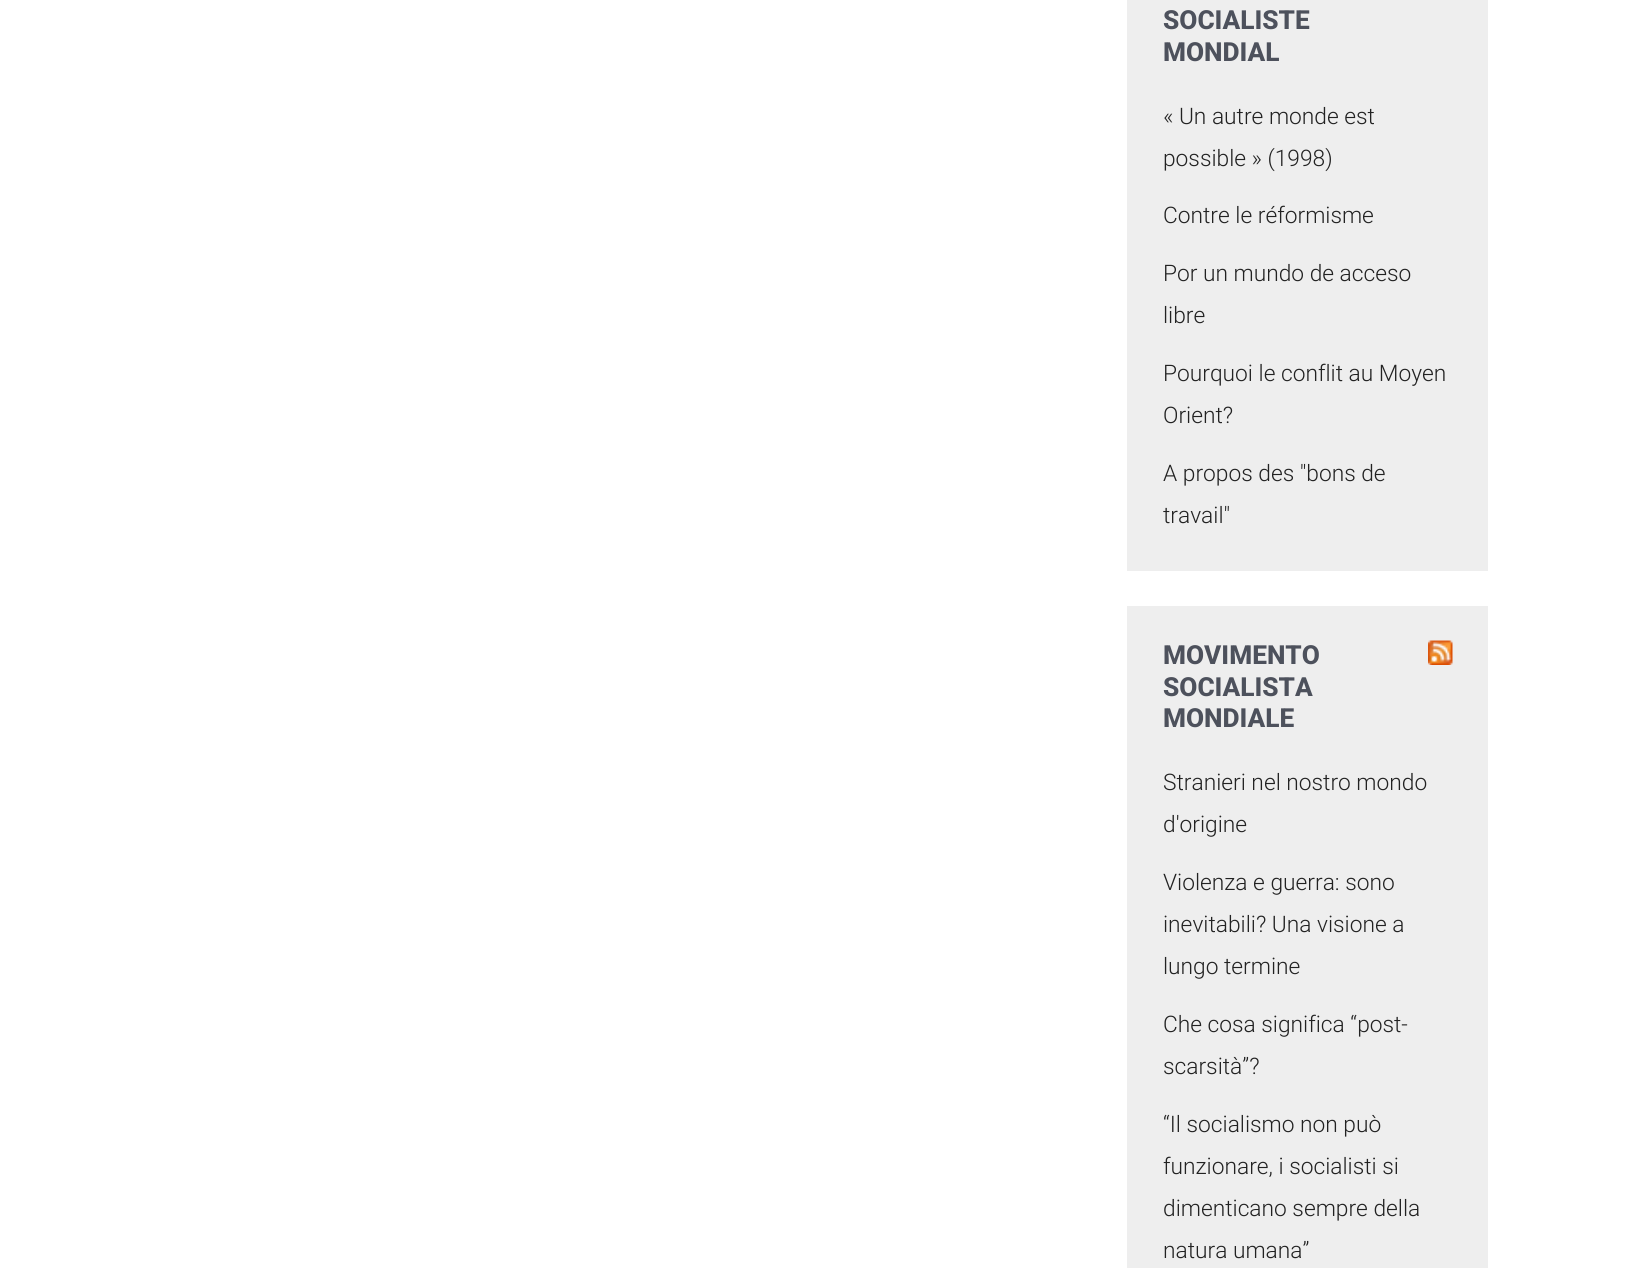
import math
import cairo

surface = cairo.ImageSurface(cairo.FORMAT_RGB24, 1652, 1268)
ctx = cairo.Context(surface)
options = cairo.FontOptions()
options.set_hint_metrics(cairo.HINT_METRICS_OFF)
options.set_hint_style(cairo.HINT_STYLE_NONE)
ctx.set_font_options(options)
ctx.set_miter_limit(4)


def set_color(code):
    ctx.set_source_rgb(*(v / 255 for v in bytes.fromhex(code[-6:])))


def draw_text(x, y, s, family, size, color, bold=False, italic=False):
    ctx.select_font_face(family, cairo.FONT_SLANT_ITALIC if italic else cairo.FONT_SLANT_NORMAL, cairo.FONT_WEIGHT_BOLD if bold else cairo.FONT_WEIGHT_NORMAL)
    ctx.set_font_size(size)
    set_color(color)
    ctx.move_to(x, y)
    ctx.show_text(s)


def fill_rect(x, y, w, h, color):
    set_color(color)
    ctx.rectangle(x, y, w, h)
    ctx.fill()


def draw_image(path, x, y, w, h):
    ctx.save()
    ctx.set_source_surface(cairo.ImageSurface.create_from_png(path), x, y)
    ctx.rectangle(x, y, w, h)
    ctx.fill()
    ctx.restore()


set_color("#ffffff")
ctx.paint()
fill_rect(1127, 0, 361, 571, "#eeeeee")
draw_text(1163, 29, "SOCIALISTE", "Roboto ExtraBold", 26.25, "#4d515c")
draw_text(1163, 61, "MONDIAL", "Roboto ExtraBold", 26.25, "#4d515c")
draw_text(1163, 124, "« Un autre monde est", "Roboto Light", 22.75, "#222222")
draw_text(1163, 166, "possible » (1998)", "Roboto Light", 22.75, "#222222")
draw_text(1163, 223, "Contre le réformisme", "Roboto Light", 22.75, "#222222")
draw_text(1163, 281, "Por un mundo de acceso", "Roboto Light", 22.75, "#222222")
draw_text(1163, 323, "libre", "Roboto Light", 22.75, "#222222")
draw_text(1163, 381, "Pourquoi le conflit au Moyen", "Roboto Light", 22.75, "#222222")
draw_text(1163, 423, "Orient?", "Roboto Light", 22.75, "#222222")
draw_text(1163, 481, "A propos des \"bons de", "Roboto Light", 22.75, "#222222")
draw_text(1163, 523, "travail\"", "Roboto Light", 22.75, "#222222")
fill_rect(1127, 606, 361, 662, "#eeeeee")
draw_text(1163, 664, "MOVIMENTO", "Roboto ExtraBold", 26.25, "#4d515c")
draw_image("assets/img1.png", 1428, 640, 25, 25)
draw_text(1163, 696, "SOCIALISTA", "Roboto ExtraBold", 26.25, "#4d515c")
draw_text(1163, 727, "MONDIALE", "Roboto ExtraBold", 26.25, "#4d515c")
draw_text(1163, 790, "Stranieri nel nostro mondo", "Roboto Light", 22.75, "#222222")
draw_text(1163, 832, "d'origine", "Roboto Light", 22.75, "#222222")
draw_text(1163, 890, "Violenza e guerra: sono", "Roboto Light", 22.75, "#222222")
draw_text(1163, 932, "inevitabili? Una visione a", "Roboto Light", 22.75, "#222222")
draw_text(1163, 974, "lungo termine", "Roboto Light", 22.75, "#222222")
draw_text(1163, 1032, "Che cosa significa “post-", "Roboto Light", 22.75, "#222222")
draw_text(1163, 1074, "scarsità”?", "Roboto Light", 22.75, "#222222")
draw_text(1163, 1132, "“Il socialismo non può", "Roboto Light", 22.75, "#222222")
draw_text(1163, 1174, "funzionare, i socialisti si", "Roboto Light", 22.75, "#222222")
draw_text(1163, 1216, "dimenticano sempre della", "Roboto Light", 22.75, "#222222")
draw_text(1163, 1258, "natura umana”", "Roboto Light", 22.75, "#222222")
surface.write_to_png("output.png")
